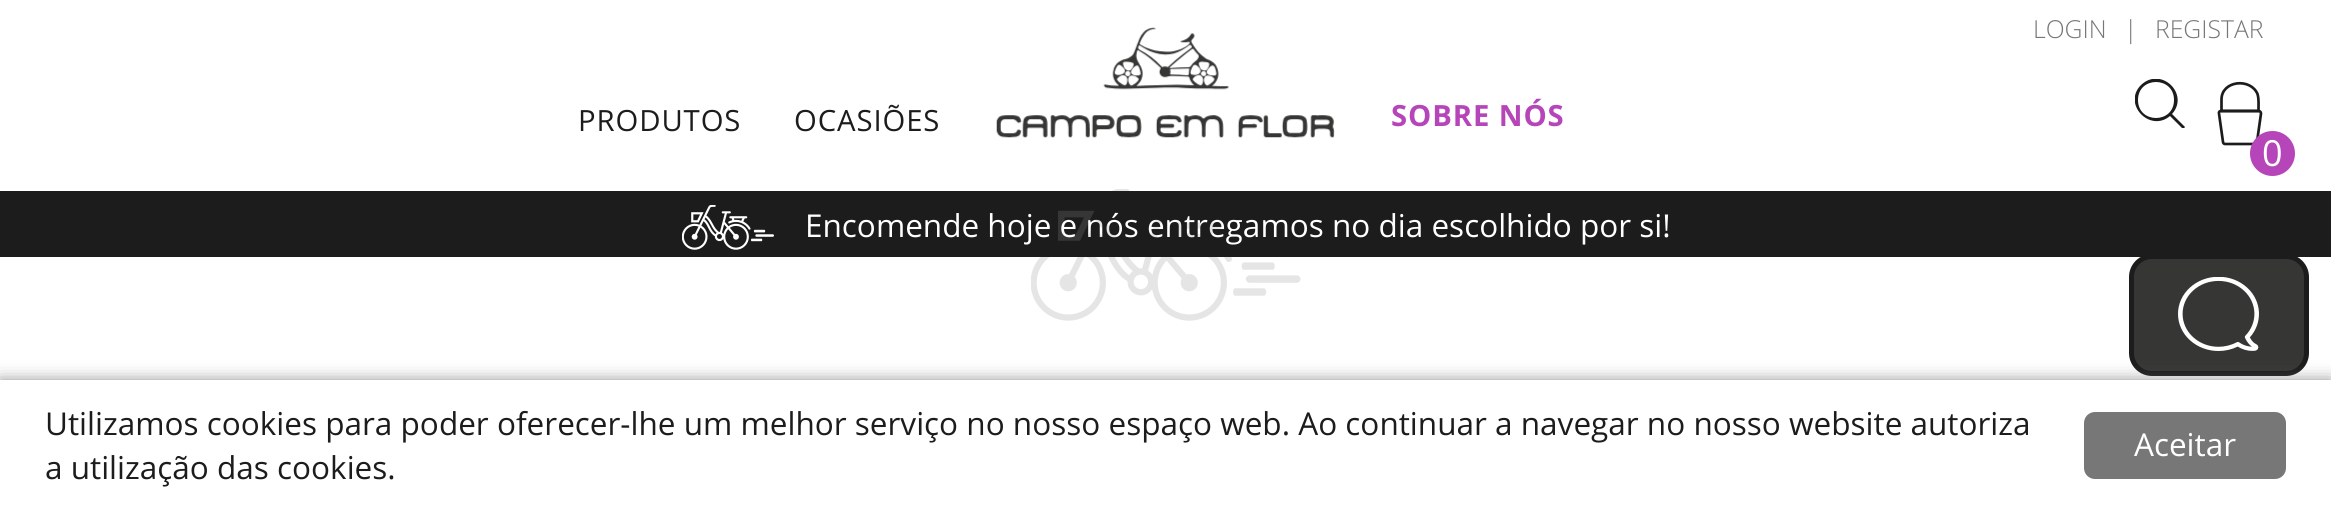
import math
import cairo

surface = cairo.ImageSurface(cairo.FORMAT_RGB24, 2331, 510)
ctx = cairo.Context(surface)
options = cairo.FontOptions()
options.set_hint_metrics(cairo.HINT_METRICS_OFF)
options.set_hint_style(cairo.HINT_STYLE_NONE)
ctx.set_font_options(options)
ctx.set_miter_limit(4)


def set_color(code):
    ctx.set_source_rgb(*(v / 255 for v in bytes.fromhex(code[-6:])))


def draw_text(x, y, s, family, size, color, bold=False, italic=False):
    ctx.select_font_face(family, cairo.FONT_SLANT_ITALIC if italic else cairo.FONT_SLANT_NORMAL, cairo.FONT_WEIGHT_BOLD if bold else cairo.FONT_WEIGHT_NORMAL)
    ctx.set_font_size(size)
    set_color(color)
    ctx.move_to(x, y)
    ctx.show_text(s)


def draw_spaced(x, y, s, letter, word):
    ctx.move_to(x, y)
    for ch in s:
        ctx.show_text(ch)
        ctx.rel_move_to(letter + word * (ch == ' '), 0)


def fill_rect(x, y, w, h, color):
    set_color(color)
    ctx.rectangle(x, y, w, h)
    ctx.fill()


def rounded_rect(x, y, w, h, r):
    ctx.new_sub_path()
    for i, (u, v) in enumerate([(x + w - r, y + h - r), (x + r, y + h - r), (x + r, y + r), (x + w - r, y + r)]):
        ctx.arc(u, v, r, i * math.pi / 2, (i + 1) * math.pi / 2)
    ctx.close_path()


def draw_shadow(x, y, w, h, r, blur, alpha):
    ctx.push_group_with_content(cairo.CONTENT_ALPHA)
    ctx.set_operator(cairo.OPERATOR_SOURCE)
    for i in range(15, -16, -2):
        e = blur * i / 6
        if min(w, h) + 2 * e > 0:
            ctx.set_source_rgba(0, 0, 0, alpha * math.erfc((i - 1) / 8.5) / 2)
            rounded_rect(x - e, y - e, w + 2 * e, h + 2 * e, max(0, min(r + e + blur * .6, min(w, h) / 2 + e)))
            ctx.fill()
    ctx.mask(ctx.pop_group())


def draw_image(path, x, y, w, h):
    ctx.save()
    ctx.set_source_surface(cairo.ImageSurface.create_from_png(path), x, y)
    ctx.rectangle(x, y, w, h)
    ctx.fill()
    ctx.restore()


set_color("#ffffff")
ctx.paint()
draw_text(2033, 38, "LOGIN", "Open Sans Light", 24.75, "#777777")
draw_text(2124, 38, "|", "Open Sans Light", 24.75, "#777777")
draw_text(2155, 38, "REGISTAR", "Open Sans Light", 24.75, "#777777")
ctx.select_font_face("Open Sans")
ctx.set_font_size(29.25)
set_color("#1c1c1c")
draw_spaced(578, 131, "PRODUTOS", 0.9, 0)
draw_spaced(794, 131, "OCASIÕES", 0.9, 0)
draw_image("assets/img1.png", 996, 27, 339, 111)
ctx.select_font_face("Open Sans", cairo.FONT_SLANT_NORMAL, cairo.FONT_WEIGHT_BOLD)
set_color("#b645ba")
draw_spaced(1391, 126, "SOBRE NÓS", 0.9, 0)
ctx.save()
ctx.rectangle(2135, 79, 50, 49)
ctx.clip()
set_color("#1c1c1c")
ctx.new_path()
ctx.move_to(2184, 126)
ctx.line_to(2172, 114)
ctx.curve_to(2190, 94, 2161, 66, 2141, 85)
ctx.curve_to(2122, 104, 2150, 133, 2170, 116)
ctx.line_to(2182, 128)
ctx.curve_to(2184, 129, 2186, 127, 2184, 126)
ctx.close_path()
ctx.move_to(2138, 100)
ctx.curve_to(2138, 76, 2174, 76, 2174, 100)
ctx.curve_to(2174, 124, 2138, 124, 2138, 100)
ctx.close_path()
ctx.fill()
ctx.restore()
ctx.new_path()
ctx.move_to(2221.5, 99.5)
ctx.line_to(2221.5, 111)
ctx.line_to(2258.5, 111)
ctx.curve_to(2258.5, 105.5, 2259, 99, 2257.5, 94)
ctx.curve_to(2250.5, 77.5, 2221.5, 80.5, 2221.5, 99.5)
ctx.close_path()
set_color("#1c1c1c")
ctx.set_line_width(2.7)
ctx.stroke()
ctx.new_path()
ctx.move_to(2258.5, 111)
ctx.line_to(2221, 111)
ctx.curve_to(2219.5, 111, 2218.5, 112, 2219, 113.5)
ctx.line_to(2223, 142)
ctx.curve_to(2223, 143, 2224, 144, 2225, 144)
ctx.line_to(2255, 144)
ctx.curve_to(2256, 144, 2257, 143, 2257, 142)
ctx.line_to(2261, 113.5)
ctx.curve_to(2261, 112, 2260, 111, 2258.5, 111)
ctx.close_path()
ctx.stroke()
set_color("#b645ba")
ctx.arc(2272.5, 153.5, 22.5, 0, 2 * math.pi)
ctx.fill()
draw_text(2262, 166, "0", "Open Sans", 36, "#ffffff")
set_color("#363634")
rounded_rect(2131.5, 256.5, 175, 117, 20.5)
ctx.fill_preserve()
set_color("#1c1c1c")
ctx.set_line_width(5)
ctx.stroke()
fill_rect(0, 191, 2331, 66, "#1c1c1c")
draw_image("assets/img2.png", 682, 205, 92, 45)
draw_text(805, 237, "Encomende hoje e nós entregamos no dia escolhido por si!", "Open Sans", 31.5, "#ffffff")
draw_image("assets/img3.png", 1031, 189, 270, 132)
draw_image("assets/img4.png", 2178, 277, 81, 74)
ctx.save()
ctx.set_fill_rule(cairo.FILL_RULE_EVEN_ODD)
ctx.new_path()
ctx.move_to(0, 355)
ctx.line_to(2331, 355)
ctx.line_to(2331, 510)
ctx.line_to(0, 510)
ctx.close_path()
ctx.move_to(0, 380)
ctx.line_to(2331, 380)
ctx.line_to(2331, 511)
ctx.line_to(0, 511)
ctx.close_path()
ctx.clip()
set_color("#686868")
draw_shadow(0, 383, 2331, 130, 0, 9, 1)
ctx.restore()
ctx.set_source_rgba(1, 1, 1, 0.9)
ctx.rectangle(0, 380, 2331, 1)
ctx.fill()
draw_text(45, 435, "Utilizamos cookies para poder oferecer-lhe um melhor serviço no nosso espaço web. Ao continuar a navegar no nosso website autoriza", "Open Sans", 31.5, "#1c1c1c")
draw_text(45, 479, "a utilização das cookies.", "Open Sans", 31.5, "#1c1c1c")
set_color("#777777")
rounded_rect(2085, 413, 200, 65, 10)
ctx.fill_preserve()
ctx.set_line_width(2)
ctx.stroke()
draw_text(2134, 456, "Aceitar", "Open Sans", 31.5, "#ffffff")
surface.write_to_png("output.png")
